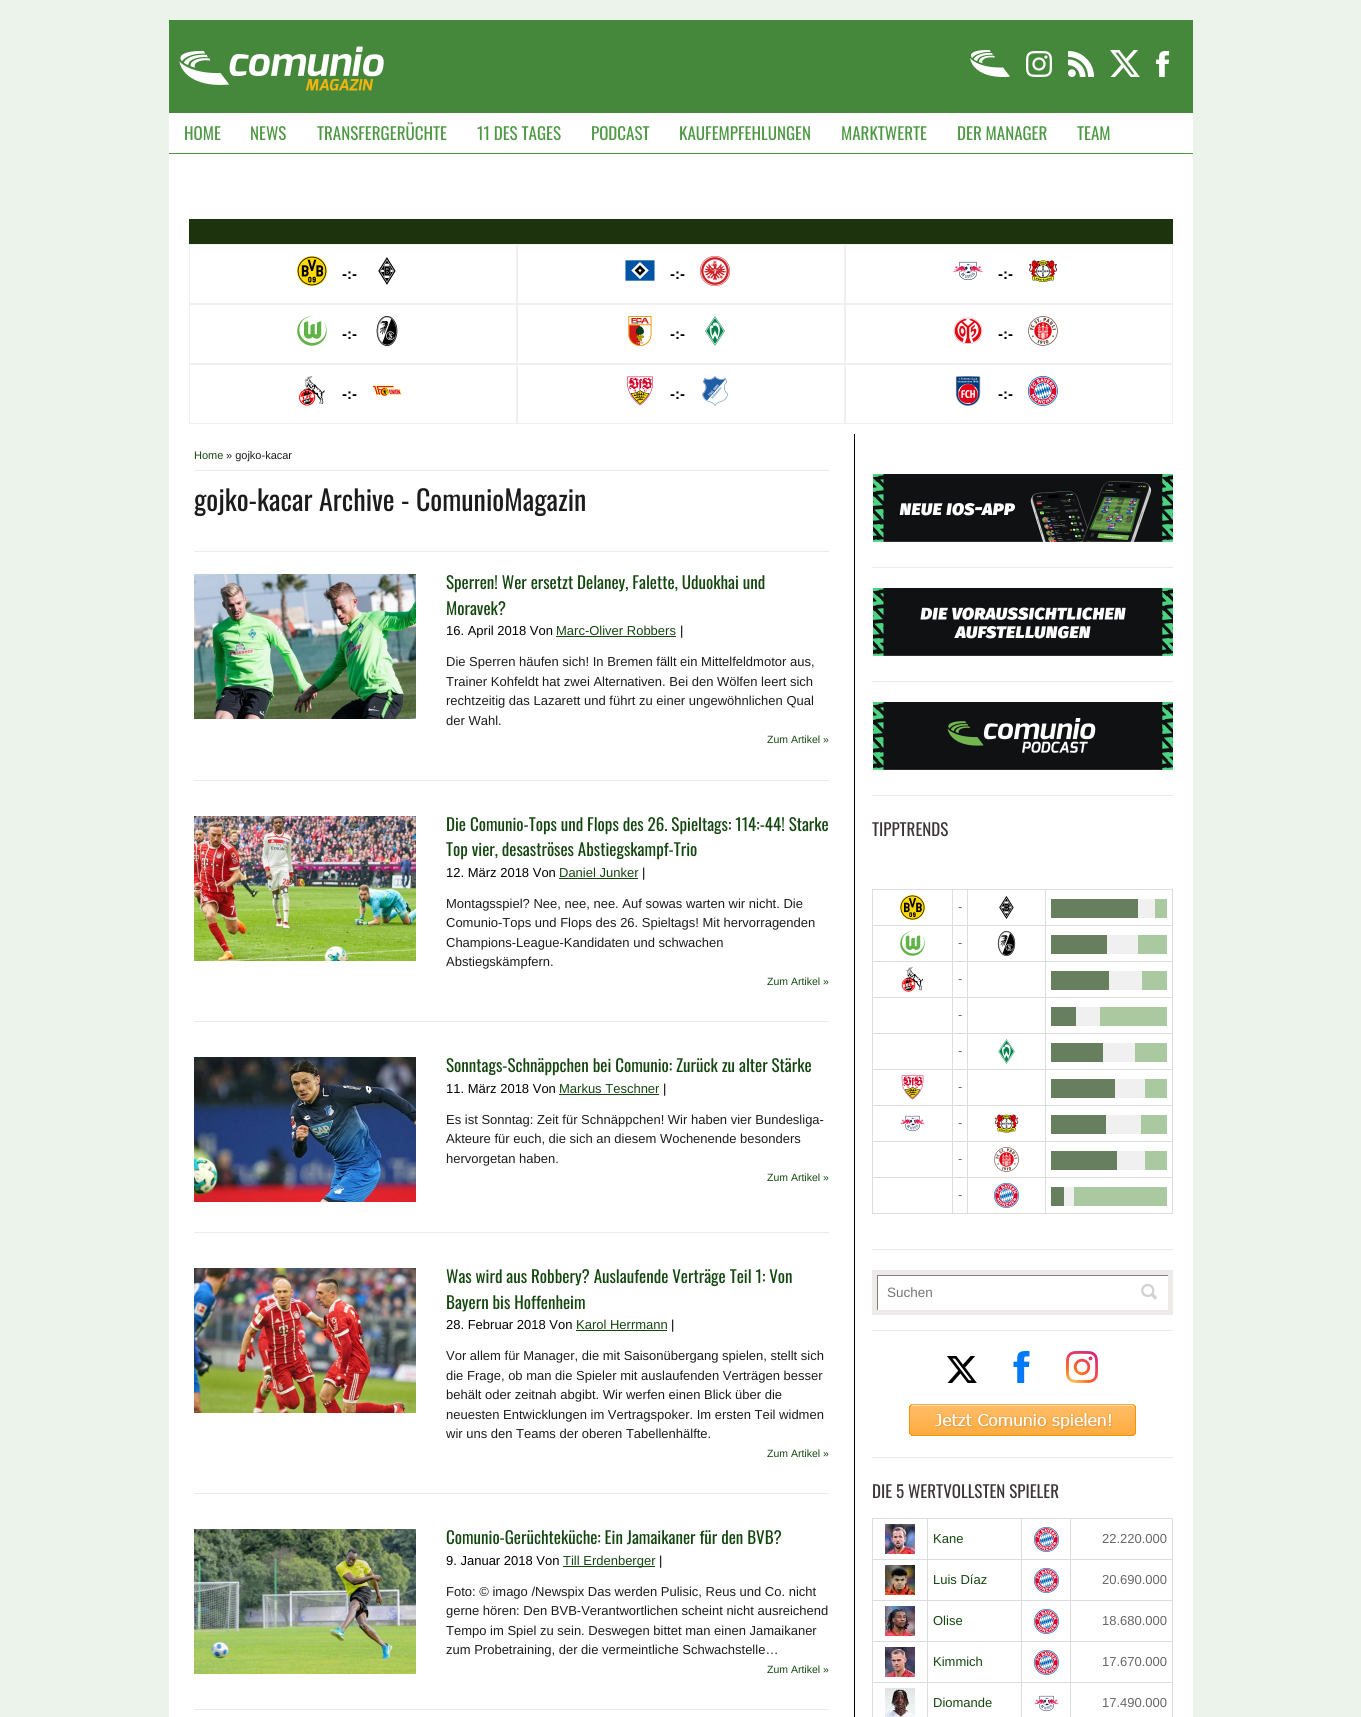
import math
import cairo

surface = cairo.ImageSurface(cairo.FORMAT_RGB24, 1361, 1717)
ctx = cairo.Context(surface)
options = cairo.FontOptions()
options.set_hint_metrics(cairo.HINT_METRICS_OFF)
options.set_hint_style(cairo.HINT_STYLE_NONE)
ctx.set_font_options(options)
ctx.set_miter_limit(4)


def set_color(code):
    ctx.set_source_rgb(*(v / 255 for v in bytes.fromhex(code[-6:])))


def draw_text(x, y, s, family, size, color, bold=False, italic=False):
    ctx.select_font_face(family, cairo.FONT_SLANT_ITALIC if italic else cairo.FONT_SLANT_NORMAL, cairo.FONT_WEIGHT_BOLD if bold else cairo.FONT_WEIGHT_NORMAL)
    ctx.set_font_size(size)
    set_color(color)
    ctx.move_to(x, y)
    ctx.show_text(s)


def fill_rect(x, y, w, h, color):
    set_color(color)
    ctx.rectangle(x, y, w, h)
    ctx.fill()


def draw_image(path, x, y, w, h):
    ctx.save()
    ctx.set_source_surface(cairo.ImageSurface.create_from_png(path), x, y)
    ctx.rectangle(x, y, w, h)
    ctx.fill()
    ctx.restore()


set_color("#ecf3eb")
ctx.paint()
fill_rect(169, 20, 1024, 93, "#45873b")
draw_image("assets/img1.png", 179, 46, 205, 45)
draw_image("assets/img2.png", 970, 50, 40, 27)
draw_image("assets/img3.png", 1026, 51, 26, 26)
draw_image("assets/img4.png", 1068, 51, 26, 26)
draw_image("assets/img5.png", 1110, 50, 30, 27)
draw_image("assets/img6.png", 1156, 51, 14, 26)
fill_rect(169, 113, 1024, 1604, "#ffffff")
fill_rect(169, 153, 1024, 1, "#4e9944")
draw_text(184, 140, "HOME", "Oswald", 17, "#4e9944")
draw_text(250, 140, "NEWS", "Oswald", 17, "#4e9944")
draw_text(317, 140, "TRANSFERGERÜCHTE", "Oswald", 17, "#4e9944")
draw_text(477, 140, "11 DES TAGES", "Oswald", 17, "#4e9944")
draw_text(591, 140, "PODCAST", "Oswald", 17, "#4e9944")
draw_text(679, 140, "KAUFEMPFEHLUNGEN", "Oswald", 17, "#4e9944")
draw_text(841, 140, "MARKTWERTE", "Oswald", 17, "#4e9944")
draw_text(957, 140, "DER MANAGER", "Oswald", 17, "#4e9944")
draw_text(1077, 140, "TEAM", "Oswald", 17, "#4e9944")
fill_rect(189, 219, 984, 25, "#1d330d")
ctx.rectangle(189.5, 244.5, 327, 59)
set_color("#eff0ef")
ctx.set_line_width(1)
ctx.stroke()
draw_image("assets/img7.png", 297, 256, 30, 30)
draw_text(342, 279, "-:-", "Liberation Sans", 15, "#000000", bold=True)
draw_image("assets/img8.png", 378, 257, 18, 28)
ctx.rectangle(517.5, 244.5, 327, 59)
set_color("#eff0ef")
ctx.stroke()
draw_image("assets/img9.png", 625, 260, 30, 21)
draw_text(670, 279, "-:-", "Liberation Sans", 15, "#000000", bold=True)
draw_image("assets/img10.png", 700, 256, 30, 30)
ctx.rectangle(845.5, 244.5, 327, 59)
set_color("#eff0ef")
ctx.stroke()
draw_image("assets/img11.png", 953, 261, 30, 20)
draw_text(998, 279, "-:-", "Liberation Sans", 15, "#000000", bold=True)
draw_image("assets/img12.png", 1029, 260, 28, 22)
ctx.rectangle(189.5, 304.5, 327, 59)
set_color("#eff0ef")
ctx.stroke()
draw_image("assets/img13.png", 297, 316, 30, 30)
draw_text(342, 339, "-:-", "Liberation Sans", 15, "#000000", bold=True)
draw_image("assets/img14.png", 376, 316, 22, 30)
ctx.rectangle(517.5, 304.5, 327, 59)
set_color("#eff0ef")
ctx.stroke()
draw_image("assets/img15.png", 628, 316, 24, 30)
draw_text(670, 339, "-:-", "Liberation Sans", 15, "#000000", bold=True)
draw_image("assets/img16.png", 705, 316, 20, 30)
ctx.rectangle(845.5, 304.5, 327, 59)
set_color("#eff0ef")
ctx.stroke()
draw_image("assets/img17.png", 953, 317, 30, 27)
draw_text(998, 339, "-:-", "Liberation Sans", 15, "#000000", bold=True)
draw_image("assets/img18.png", 1028, 316, 30, 30)
ctx.rectangle(189.5, 364.5, 327, 59)
set_color("#eff0ef")
ctx.stroke()
draw_image("assets/img19.png", 299, 376, 26, 30)
draw_text(342, 399, "-:-", "Liberation Sans", 15, "#000000", bold=True)
draw_image("assets/img20.png", 372, 385, 30, 11)
ctx.rectangle(517.5, 364.5, 327, 59)
set_color("#eff0ef")
ctx.stroke()
draw_image("assets/img21.png", 627, 376, 26, 30)
draw_text(670, 399, "-:-", "Liberation Sans", 15, "#000000", bold=True)
draw_image("assets/img22.png", 702, 376, 26, 30)
ctx.rectangle(845.5, 364.5, 327, 59)
set_color("#eff0ef")
ctx.stroke()
draw_image("assets/img23.png", 955, 376, 26, 30)
draw_text(998, 399, "-:-", "Liberation Sans", 15, "#000000", bold=True)
draw_image("assets/img24.png", 1028, 376, 30, 30)
fill_rect(854, 434, 1, 1283, "#000000")
fill_rect(194, 470, 635, 1, "#edeae9")
draw_text(194, 459, "Home", "Liberation Sans", 11, "#14470f")
draw_text(226, 459, "» gojko-kacar", "Liberation Sans", 11, "#1c1c1c")
fill_rect(194, 551, 635, 1, "#efeae9")
draw_text(194, 511, "gojko-kacar Archive - ComunioMagazin", "Oswald", 28, "#1c1c1c")
fill_rect(194, 780, 635, 1, "#edeae9")
draw_image("assets/img25.png", 194, 574, 222, 145)
draw_text(446, 589, "Sperren! Wer ersetzt Delaney, Falette, Uduokhai und", "Oswald", 17, "#14470f")
draw_text(446, 615, "Moravek?", "Oswald", 17, "#14470f")
draw_text(446, 635, "16. April 2018 Von", "Liberation Sans", 13, "#000000")
draw_text(556, 635, "Marc-Oliver Robbers", "Liberation Sans", 13, "#14470f")
fill_rect(556, 636, 120, 1, "#14470f")
draw_text(680, 635, "|", "Liberation Sans", 13, "#000000")
draw_text(446, 666, "Die Sperren häufen sich! In Bremen fällt ein Mittelfeldmotor aus,", "Liberation Sans", 13, "#1c1c1c")
draw_text(446, 686, "Trainer Kohfeldt hat zwei Alternativen. Bei den Wölfen leert sich", "Liberation Sans", 13, "#1c1c1c")
draw_text(446, 705, "rechtzeitig das Lazarett und führt zu einer ungewöhnlichen Qual", "Liberation Sans", 13, "#1c1c1c")
draw_text(446, 725, "der Wahl.", "Liberation Sans", 13, "#1c1c1c")
draw_text(767, 743, "Zum Artikel »", "Liberation Sans", 10.5, "#14470f")
fill_rect(194, 1021, 635, 1, "#edeae9")
draw_image("assets/img26.png", 194, 816, 222, 145)
draw_text(446, 831, "Die Comunio-Tops und Flops des 26. Spieltags: 114:-44! Starke", "Oswald", 17, "#14470f")
draw_text(446, 856, "Top vier, desaströses Abstiegskampf-Trio", "Oswald", 17, "#14470f")
draw_text(446, 877, "12. März 2018 Von", "Liberation Sans", 13, "#000000")
draw_text(559, 877, "Daniel Junker", "Liberation Sans", 13, "#14470f")
fill_rect(559, 878, 79, 1, "#14470f")
draw_text(642, 877, "|", "Liberation Sans", 13, "#000000")
draw_text(446, 908, "Montagsspiel? Nee, nee, nee. Auf sowas warten wir nicht. Die", "Liberation Sans", 13, "#1c1c1c")
draw_text(446, 927, "Comunio-Tops und Flops des 26. Spieltags! Mit hervorragenden", "Liberation Sans", 13, "#1c1c1c")
draw_text(446, 947, "Champions-League-Kandidaten und schwachen", "Liberation Sans", 13, "#1c1c1c")
draw_text(446, 966, "Abstiegskämpfern.", "Liberation Sans", 13, "#1c1c1c")
draw_text(767, 985, "Zum Artikel »", "Liberation Sans", 10.5, "#14470f")
fill_rect(194, 1232, 635, 1, "#edeae9")
draw_image("assets/img27.png", 194, 1057, 222, 145)
draw_text(446, 1072, "Sonntags-Schnäppchen bei Comunio: Zurück zu alter Stärke", "Oswald", 17, "#14470f")
draw_text(446, 1093, "11. März 2018 Von", "Liberation Sans", 13, "#000000")
draw_text(559, 1093, "Markus Teschner", "Liberation Sans", 13, "#14470f")
fill_rect(559, 1094, 100, 1, "#14470f")
draw_text(663, 1093, "|", "Liberation Sans", 13, "#000000")
draw_text(446, 1124, "Es ist Sonntag: Zeit für Schnäppchen! Wir haben vier Bundesliga-", "Liberation Sans", 13, "#1c1c1c")
draw_text(446, 1143, "Akteure für euch, die sich an diesem Wochenende besonders", "Liberation Sans", 13, "#1c1c1c")
draw_text(446, 1163, "hervorgetan haben.", "Liberation Sans", 13, "#1c1c1c")
draw_text(767, 1181, "Zum Artikel »", "Liberation Sans", 10.5, "#14470f")
fill_rect(194, 1493, 635, 1, "#edeae9")
draw_image("assets/img28.png", 194, 1268, 222, 145)
draw_text(446, 1283, "Was wird aus Robbery? Auslaufende Verträge Teil 1: Von", "Oswald", 17, "#14470f")
draw_text(446, 1309, "Bayern bis Hoffenheim", "Oswald", 17, "#14470f")
draw_text(446, 1329, "28. Februar 2018 Von", "Liberation Sans", 13, "#000000")
draw_text(576, 1329, "Karol Herrmann", "Liberation Sans", 13, "#14470f")
fill_rect(576, 1330, 91, 1, "#14470f")
draw_text(671, 1329, "|", "Liberation Sans", 13, "#000000")
draw_text(446, 1360, "Vor allem für Manager, die mit Saisonübergang spielen, stellt sich", "Liberation Sans", 13, "#1c1c1c")
draw_text(446, 1380, "die Frage, ob man die Spieler mit auslaufenden Verträgen besser", "Liberation Sans", 13, "#1c1c1c")
draw_text(446, 1399, "behält oder zeitnah abgibt. Wir werfen einen Blick über die", "Liberation Sans", 13, "#1c1c1c")
draw_text(446, 1419, "neuesten Entwicklungen im Vertragspoker. Im ersten Teil widmen", "Liberation Sans", 13, "#1c1c1c")
draw_text(446, 1438, "wir uns den Teams der oberen Tabellenhälfte.", "Liberation Sans", 13, "#1c1c1c")
draw_text(767, 1457, "Zum Artikel »", "Liberation Sans", 10.5, "#14470f")
fill_rect(194, 1709, 635, 1, "#edeae9")
draw_image("assets/img29.png", 194, 1529, 222, 145)
draw_text(446, 1544, "Comunio-Gerüchteküche: Ein Jamaikaner für den BVB?", "Oswald", 17, "#14470f")
draw_text(446, 1565, "9. Januar 2018 Von", "Liberation Sans", 13, "#000000")
fill_rect(563, 1566, 92, 1, "#14470f")
draw_text(563, 1565, "Till Erdenberger", "Liberation Sans", 13, "#14470f")
draw_text(659, 1565, "|", "Liberation Sans", 13, "#000000")
draw_text(446, 1596, "Foto: © imago /Newspix Das werden Pulisic, Reus und Co. nicht", "Liberation Sans", 13, "#1c1c1c")
draw_text(446, 1615, "gerne hören: Den BVB-Verantwortlichen scheint nicht ausreichend", "Liberation Sans", 13, "#1c1c1c")
draw_text(446, 1635, "Tempo im Spiel zu sein. Deswegen bittet man einen Jamaikaner", "Liberation Sans", 13, "#1c1c1c")
draw_text(446, 1654, "zum Probetraining, der die vermeintliche Schwachstelle…", "Liberation Sans", 13, "#1c1c1c")
draw_text(767, 1673, "Zum Artikel »", "Liberation Sans", 10.5, "#14470f")
fill_rect(872, 567, 301, 1, "#edeae9")
draw_image("assets/img30.png", 873, 474, 300, 68)
fill_rect(872, 681, 301, 1, "#edeae9")
draw_image("assets/img31.png", 873, 588, 300, 68)
fill_rect(872, 795, 301, 1, "#edeae9")
draw_image("assets/img32.png", 873, 702, 300, 68)
fill_rect(872, 1249, 301, 1, "#edeae9")
draw_text(872, 836, "TIPPTRENDS", "Oswald", 17, "#3d3437")
fill_rect(1045, 889, 128, 1, "#dddddd")
fill_rect(1045, 925, 128, 1, "#dddddd")
fill_rect(1045, 961, 128, 1, "#dddddd")
fill_rect(1045, 997, 128, 1, "#dddddd")
fill_rect(1045, 1033, 128, 1, "#dddddd")
fill_rect(1045, 1069, 128, 1, "#dddddd")
fill_rect(1045, 1105, 128, 1, "#dddddd")
fill_rect(1045, 1141, 128, 1, "#dddddd")
fill_rect(1045, 1177, 128, 1, "#dddddd")
fill_rect(1172, 1177, 1, 37, "#dddddd")
fill_rect(1045, 1213, 128, 1, "#dddddd")
fill_rect(1045, 1177, 1, 37, "#dddddd")
fill_rect(967, 1177, 79, 1, "#dddddd")
fill_rect(1045, 1141, 1, 37, "#dddddd")
fill_rect(967, 1141, 79, 1, "#dddddd")
fill_rect(1045, 1105, 1, 37, "#dddddd")
fill_rect(967, 1105, 79, 1, "#dddddd")
fill_rect(1045, 1069, 1, 37, "#dddddd")
fill_rect(967, 1069, 79, 1, "#dddddd")
fill_rect(1045, 1033, 1, 37, "#dddddd")
fill_rect(967, 1033, 79, 1, "#dddddd")
fill_rect(1045, 997, 1, 37, "#dddddd")
fill_rect(967, 997, 79, 1, "#dddddd")
fill_rect(1045, 961, 1, 37, "#dddddd")
fill_rect(967, 961, 79, 1, "#dddddd")
fill_rect(1045, 925, 1, 37, "#dddddd")
fill_rect(967, 925, 79, 1, "#dddddd")
fill_rect(1045, 889, 1, 37, "#dddddd")
fill_rect(967, 889, 79, 1, "#dddddd")
fill_rect(967, 1213, 79, 1, "#dddddd")
fill_rect(967, 1177, 1, 37, "#dddddd")
fill_rect(952, 1177, 16, 1, "#dddddd")
fill_rect(967, 1141, 1, 37, "#dddddd")
fill_rect(952, 1141, 16, 1, "#dddddd")
fill_rect(967, 1105, 1, 37, "#dddddd")
fill_rect(952, 1105, 16, 1, "#dddddd")
fill_rect(967, 1069, 1, 37, "#dddddd")
fill_rect(952, 1069, 16, 1, "#dddddd")
fill_rect(967, 1033, 1, 37, "#dddddd")
fill_rect(952, 1033, 16, 1, "#dddddd")
fill_rect(967, 997, 1, 37, "#dddddd")
fill_rect(952, 997, 16, 1, "#dddddd")
fill_rect(967, 961, 1, 37, "#dddddd")
fill_rect(952, 961, 16, 1, "#dddddd")
fill_rect(967, 925, 1, 37, "#dddddd")
fill_rect(952, 925, 16, 1, "#dddddd")
fill_rect(967, 889, 1, 37, "#dddddd")
fill_rect(952, 889, 16, 1, "#dddddd")
fill_rect(952, 1213, 16, 1, "#dddddd")
fill_rect(952, 1177, 1, 37, "#dddddd")
fill_rect(872, 1177, 81, 1, "#dddddd")
fill_rect(952, 1141, 1, 37, "#dddddd")
fill_rect(872, 1141, 81, 1, "#dddddd")
fill_rect(952, 1105, 1, 37, "#dddddd")
fill_rect(872, 1105, 81, 1, "#dddddd")
fill_rect(952, 1069, 1, 37, "#dddddd")
fill_rect(872, 1069, 81, 1, "#dddddd")
fill_rect(952, 1033, 1, 37, "#dddddd")
fill_rect(872, 1033, 81, 1, "#dddddd")
fill_rect(952, 997, 1, 37, "#dddddd")
fill_rect(872, 997, 81, 1, "#dddddd")
fill_rect(952, 961, 1, 37, "#dddddd")
fill_rect(872, 961, 81, 1, "#dddddd")
fill_rect(952, 925, 1, 37, "#dddddd")
fill_rect(872, 925, 81, 1, "#dddddd")
fill_rect(952, 889, 1, 37, "#dddddd")
fill_rect(872, 889, 81, 1, "#dddddd")
fill_rect(872, 1213, 81, 1, "#dddddd")
fill_rect(872, 1177, 1, 37, "#dddddd")
fill_rect(872, 1141, 1, 37, "#dddddd")
fill_rect(872, 1105, 1, 37, "#dddddd")
fill_rect(872, 1069, 1, 37, "#dddddd")
fill_rect(872, 1033, 1, 37, "#dddddd")
fill_rect(872, 997, 1, 37, "#dddddd")
fill_rect(872, 961, 1, 37, "#dddddd")
fill_rect(872, 925, 1, 37, "#dddddd")
fill_rect(872, 889, 1, 37, "#dddddd")
draw_image("assets/img33.png", 900, 895, 25, 25)
draw_text(958, 911, "-", "Liberation Sans", 13, "#666666")
draw_image("assets/img34.png", 999, 896, 15, 23)
fill_rect(1172, 1141, 1, 37, "#dddddd")
fill_rect(1172, 1105, 1, 37, "#dddddd")
fill_rect(1172, 1069, 1, 37, "#dddddd")
fill_rect(1172, 1033, 1, 37, "#dddddd")
fill_rect(1172, 997, 1, 37, "#dddddd")
fill_rect(1172, 961, 1, 37, "#dddddd")
fill_rect(1172, 925, 1, 37, "#dddddd")
fill_rect(1172, 889, 1, 37, "#dddddd")
fill_rect(1051, 899, 87, 19, "#687f5f")
fill_rect(1138, 899, 17, 19, "#eff0ef")
fill_rect(1155, 899, 12, 19, "#abc9a0")
draw_image("assets/img35.png", 900, 931, 25, 25)
draw_text(958, 947, "-", "Liberation Sans", 13, "#666666")
draw_image("assets/img36.png", 997, 931, 19, 25)
fill_rect(1051, 935, 56, 19, "#687f5f")
fill_rect(1107, 935, 31, 19, "#eff0ef")
fill_rect(1138, 935, 29, 19, "#abc9a0")
draw_image("assets/img37.png", 901, 967, 22, 25)
draw_text(958, 983, "-", "Liberation Sans", 13, "#666666")
fill_rect(1051, 971, 58, 19, "#687f5f")
fill_rect(1109, 971, 33, 19, "#eff0ef")
fill_rect(1142, 971, 25, 19, "#abc9a0")
draw_text(958, 1019, "-", "Liberation Sans", 13, "#666666")
fill_rect(1051, 1007, 25, 19, "#687f5f")
fill_rect(1076, 1007, 24, 19, "#eff0ef")
fill_rect(1100, 1007, 67, 19, "#abc9a0")
draw_text(958, 1055, "-", "Liberation Sans", 13, "#666666")
draw_image("assets/img38.png", 998, 1039, 17, 25)
fill_rect(1051, 1043, 52, 19, "#687f5f")
fill_rect(1103, 1043, 32, 19, "#eff0ef")
fill_rect(1135, 1043, 32, 19, "#abc9a0")
draw_image("assets/img39.png", 901, 1075, 23, 25)
draw_text(958, 1091, "-", "Liberation Sans", 13, "#666666")
fill_rect(1051, 1079, 64, 19, "#687f5f")
fill_rect(1115, 1079, 30, 19, "#eff0ef")
fill_rect(1145, 1079, 22, 19, "#abc9a0")
draw_image("assets/img40.png", 900, 1115, 25, 17)
draw_text(958, 1127, "-", "Liberation Sans", 13, "#666666")
draw_image("assets/img41.png", 995, 1114, 24, 19)
fill_rect(1051, 1115, 55, 19, "#687f5f")
fill_rect(1106, 1115, 35, 19, "#eff0ef")
fill_rect(1141, 1115, 26, 19, "#abc9a0")
draw_text(958, 1163, "-", "Liberation Sans", 13, "#666666")
draw_image("assets/img42.png", 994, 1147, 25, 25)
fill_rect(1051, 1151, 66, 19, "#687f5f")
fill_rect(1117, 1151, 28, 19, "#eff0ef")
fill_rect(1145, 1151, 22, 19, "#abc9a0")
draw_text(958, 1199, "-", "Liberation Sans", 13, "#666666")
draw_image("assets/img43.png", 994, 1183, 25, 25)
fill_rect(1051, 1187, 13, 19, "#687f5f")
fill_rect(1064, 1187, 10, 19, "#eff0ef")
fill_rect(1074, 1187, 93, 19, "#abc9a0")
fill_rect(872, 1330, 301, 1, "#edeae9")
fill_rect(872, 1270, 301, 45, "#edeae9")
fill_rect(878, 1276, 290, 34, "#ffffff")
draw_image("assets/img44.png", 1141, 1284, 16, 16)
ctx.save()
ctx.rectangle(877, 1275, 291, 35)
ctx.clip()
set_color("#808080")
ctx.set_fill_rule(cairo.FILL_RULE_EVEN_ODD)
ctx.new_path()
ctx.move_to(778, 1176)
ctx.line_to(1267, 1176)
ctx.line_to(1267, 1409)
ctx.line_to(778, 1409)
ctx.close_path()
ctx.move_to(878, 1276)
ctx.line_to(1169, 1276)
ctx.line_to(1169, 1311)
ctx.line_to(878, 1311)
ctx.close_path()
ctx.fill()
ctx.restore()
draw_text(887, 1297, "Suchen", "Liberation Sans", 13.5, "#757575")
fill_rect(872, 1457, 301, 1, "#edeae9")
draw_image("assets/img45.png", 947, 1356, 30, 27)
draw_image("assets/img46.png", 1013, 1351, 17, 32)
draw_image("assets/img47.png", 1066, 1351, 32, 32)
draw_image("assets/img48.png", 909, 1404, 227, 32)
draw_text(872, 1498, "DIE 5 WERTVOLLSTEN SPIELER", "Oswald", 17, "#3d3437")
fill_rect(1070, 1518, 103, 1, "#dddddd")
fill_rect(1070, 1559, 103, 1, "#dddddd")
fill_rect(1070, 1600, 103, 1, "#dddddd")
fill_rect(1070, 1641, 103, 1, "#dddddd")
fill_rect(1070, 1682, 103, 1, "#dddddd")
fill_rect(1070, 1682, 1, 35, "#dddddd")
fill_rect(1021, 1682, 50, 1, "#dddddd")
fill_rect(1070, 1641, 1, 42, "#dddddd")
fill_rect(1021, 1641, 50, 1, "#dddddd")
fill_rect(1070, 1600, 1, 42, "#dddddd")
fill_rect(1021, 1600, 50, 1, "#dddddd")
fill_rect(1070, 1559, 1, 42, "#dddddd")
fill_rect(1021, 1559, 50, 1, "#dddddd")
fill_rect(1070, 1518, 1, 42, "#dddddd")
fill_rect(1021, 1518, 50, 1, "#dddddd")
fill_rect(1021, 1682, 1, 35, "#dddddd")
fill_rect(927, 1682, 95, 1, "#dddddd")
fill_rect(1021, 1641, 1, 42, "#dddddd")
fill_rect(927, 1641, 95, 1, "#dddddd")
fill_rect(1021, 1600, 1, 42, "#dddddd")
fill_rect(927, 1600, 95, 1, "#dddddd")
fill_rect(1021, 1559, 1, 42, "#dddddd")
fill_rect(927, 1559, 95, 1, "#dddddd")
fill_rect(1021, 1518, 1, 42, "#dddddd")
fill_rect(927, 1518, 95, 1, "#dddddd")
fill_rect(927, 1682, 1, 35, "#dddddd")
fill_rect(872, 1682, 56, 1, "#dddddd")
fill_rect(927, 1641, 1, 42, "#dddddd")
fill_rect(872, 1641, 56, 1, "#dddddd")
fill_rect(927, 1600, 1, 42, "#dddddd")
fill_rect(872, 1600, 56, 1, "#dddddd")
fill_rect(927, 1559, 1, 42, "#dddddd")
fill_rect(872, 1559, 56, 1, "#dddddd")
fill_rect(927, 1518, 1, 42, "#dddddd")
fill_rect(872, 1518, 56, 1, "#dddddd")
fill_rect(872, 1682, 1, 35, "#dddddd")
fill_rect(872, 1641, 1, 42, "#dddddd")
fill_rect(872, 1600, 1, 42, "#dddddd")
fill_rect(872, 1559, 1, 42, "#dddddd")
fill_rect(872, 1518, 1, 42, "#dddddd")
draw_image("assets/img49.png", 885, 1524, 30, 30)
draw_text(933, 1543, "Kane", "Liberation Sans", 13, "#14470f")
draw_image("assets/img43.png", 1034, 1527, 25, 25)
fill_rect(1172, 1682, 1, 35, "#dddddd")
fill_rect(1172, 1641, 1, 42, "#dddddd")
fill_rect(1172, 1600, 1, 42, "#dddddd")
fill_rect(1172, 1559, 1, 42, "#dddddd")
fill_rect(1172, 1518, 1, 42, "#dddddd")
draw_text(1102, 1543, "22.220.000", "Liberation Sans", 13, "#666666")
draw_image("assets/img50.png", 885, 1565, 30, 30)
draw_text(933, 1584, "Luis Díaz", "Liberation Sans", 13, "#14470f")
draw_image("assets/img43.png", 1034, 1568, 25, 25)
draw_text(1102, 1584, "20.690.000", "Liberation Sans", 13, "#666666")
draw_image("assets/img51.png", 885, 1606, 30, 30)
draw_text(933, 1625, "Olise", "Liberation Sans", 13, "#14470f")
draw_image("assets/img43.png", 1034, 1609, 25, 25)
draw_text(1102, 1625, "18.680.000", "Liberation Sans", 13, "#666666")
draw_image("assets/img52.png", 885, 1647, 30, 30)
draw_text(933, 1666, "Kimmich", "Liberation Sans", 13, "#14470f")
draw_image("assets/img43.png", 1034, 1650, 25, 25)
draw_text(1102, 1666, "17.670.000", "Liberation Sans", 13, "#666666")
draw_image("assets/img53.png", 885, 1688, 30, 29)
draw_text(933, 1707, "Diomande", "Liberation Sans", 13, "#14470f")
draw_image("assets/img40.png", 1034, 1695, 25, 17)
draw_text(1102, 1707, "17.490.000", "Liberation Sans", 13, "#666666")
surface.write_to_png("output.png")
